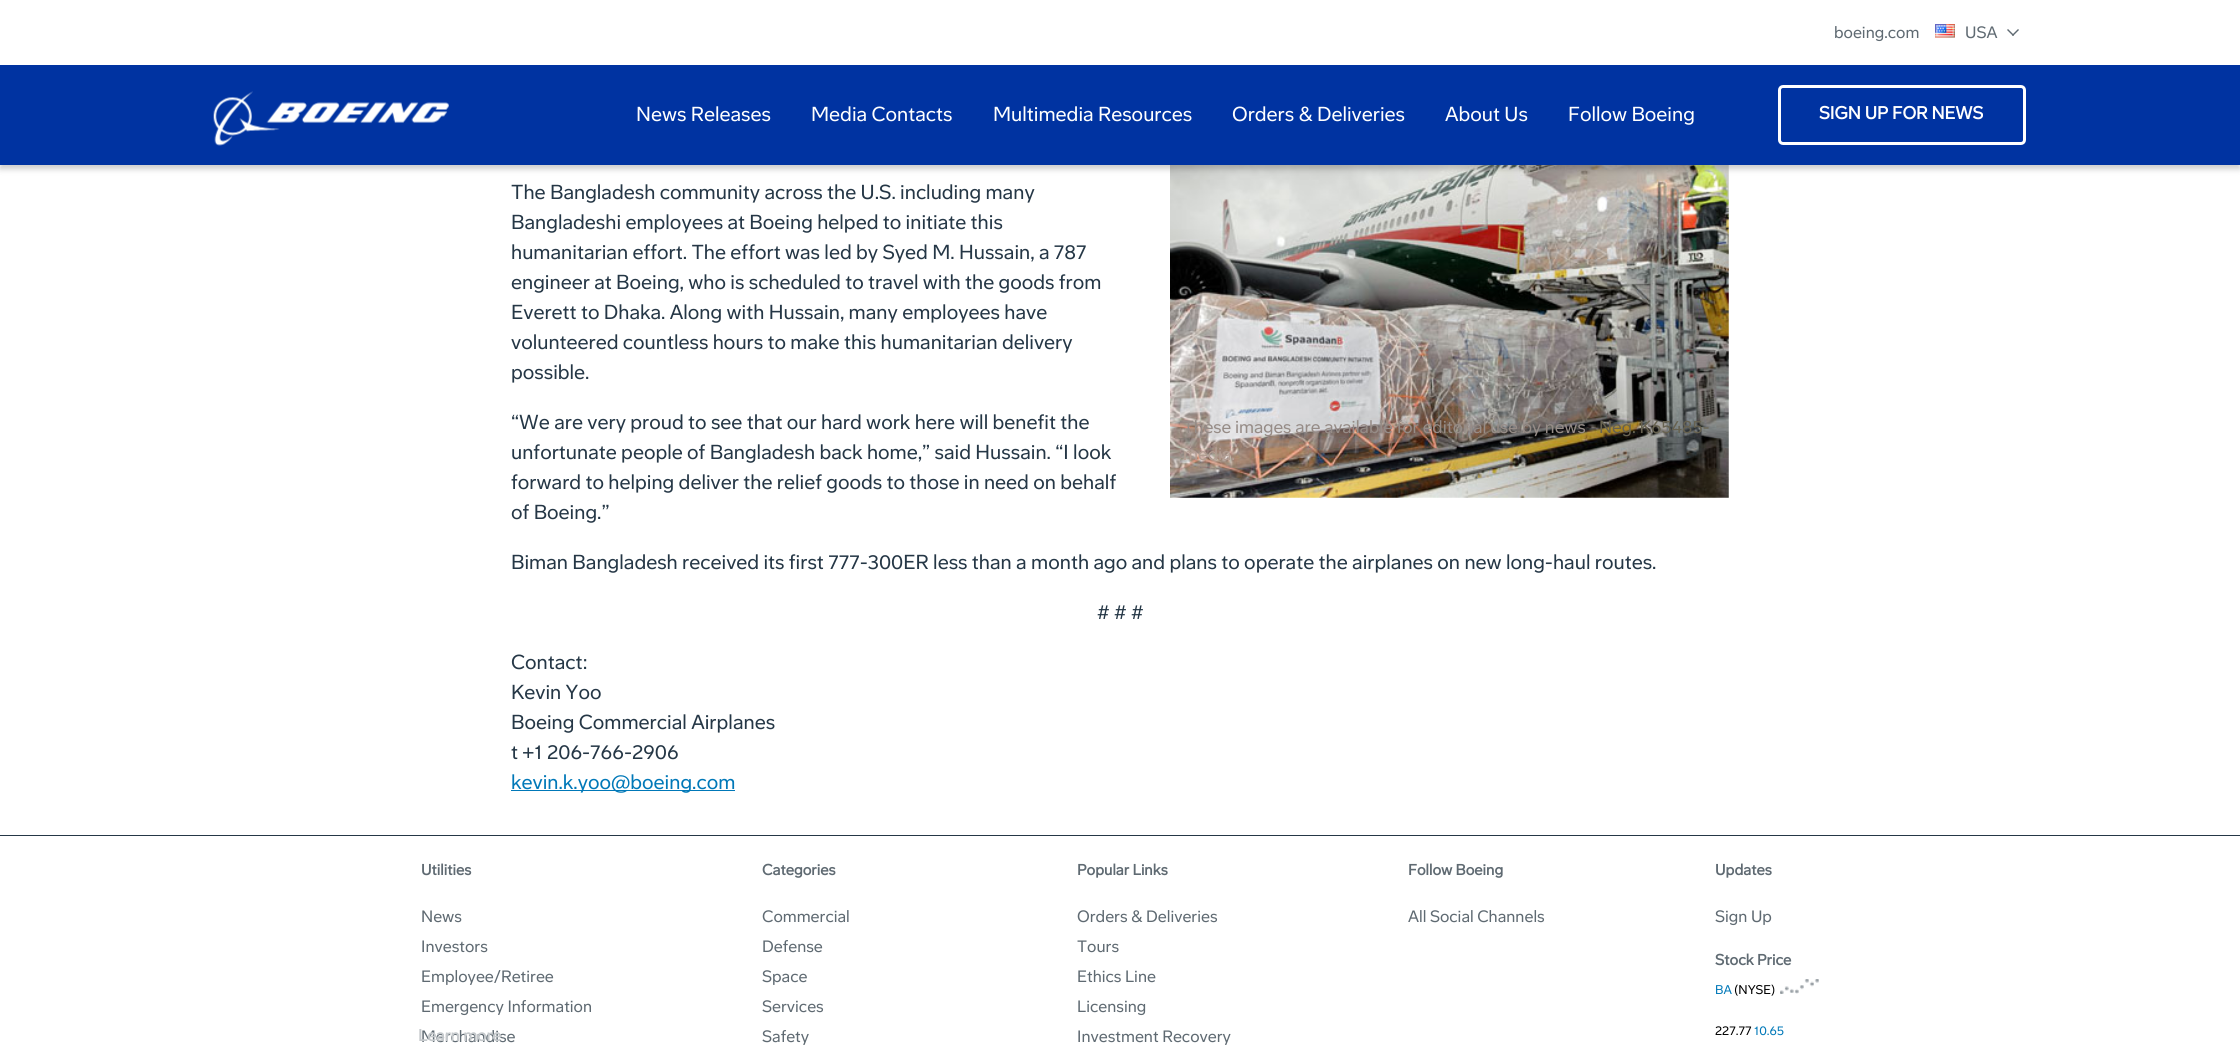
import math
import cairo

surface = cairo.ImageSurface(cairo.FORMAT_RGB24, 2240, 1059)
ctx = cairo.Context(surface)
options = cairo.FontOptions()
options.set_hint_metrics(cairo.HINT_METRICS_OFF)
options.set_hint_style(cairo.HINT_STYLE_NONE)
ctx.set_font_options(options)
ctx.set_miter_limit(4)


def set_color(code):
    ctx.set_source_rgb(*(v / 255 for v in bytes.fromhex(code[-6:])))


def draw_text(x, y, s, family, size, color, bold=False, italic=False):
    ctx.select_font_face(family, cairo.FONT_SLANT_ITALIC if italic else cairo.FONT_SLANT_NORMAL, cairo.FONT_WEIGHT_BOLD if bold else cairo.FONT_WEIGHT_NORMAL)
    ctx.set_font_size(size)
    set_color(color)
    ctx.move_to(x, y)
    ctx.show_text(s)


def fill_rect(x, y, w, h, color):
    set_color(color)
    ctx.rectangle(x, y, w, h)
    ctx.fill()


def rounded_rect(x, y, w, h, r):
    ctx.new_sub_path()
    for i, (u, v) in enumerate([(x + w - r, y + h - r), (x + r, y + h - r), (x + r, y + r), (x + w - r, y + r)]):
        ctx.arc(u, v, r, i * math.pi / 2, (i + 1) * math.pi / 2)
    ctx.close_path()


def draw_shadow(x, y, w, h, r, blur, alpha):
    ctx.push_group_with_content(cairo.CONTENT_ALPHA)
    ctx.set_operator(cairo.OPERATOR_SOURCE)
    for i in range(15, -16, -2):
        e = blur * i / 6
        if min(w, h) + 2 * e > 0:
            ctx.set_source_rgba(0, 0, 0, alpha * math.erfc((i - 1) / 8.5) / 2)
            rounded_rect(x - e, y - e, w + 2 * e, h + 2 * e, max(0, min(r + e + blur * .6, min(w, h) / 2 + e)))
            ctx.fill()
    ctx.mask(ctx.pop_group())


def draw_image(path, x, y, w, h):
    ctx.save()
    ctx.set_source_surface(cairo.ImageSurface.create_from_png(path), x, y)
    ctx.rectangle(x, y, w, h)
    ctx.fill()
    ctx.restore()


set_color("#ffffff")
ctx.paint()
draw_image("assets/img3.png", 1170, 165, 559, 333)
set_color("#000000")
draw_shadow(0, 4, 2240, 165, 0, 3, 0.2)
fill_rect(0, 0, 2240, 65, "#ffffff")
draw_text(1834, 38, "boeing.com", "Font", 16.25, "#5f6a72")
draw_image("assets/img1.png", 1935, 24, 20, 14)
draw_text(1965, 38, "USA", "Font", 16.25, "#5f6a72")
ctx.new_path()
ctx.move_to(2019, 30)
ctx.line_to(2013, 36)
ctx.line_to(2012, 35)
ctx.line_to(2018, 29)
ctx.close_path()
ctx.fill()
ctx.new_path()
ctx.move_to(2014, 35)
ctx.line_to(2013, 36)
ctx.line_to(2007, 30)
ctx.line_to(2008, 29)
ctx.close_path()
ctx.fill()
fill_rect(0, 65, 2240, 100, "#0033a1")
draw_image("assets/img2.png", 213, 91, 236, 55)
draw_text(636, 121, "News Releases", "Font", 20, "#ffffff")
draw_text(811, 121, "Media Contacts", "Font", 20, "#ffffff")
draw_text(993, 121, "Multimedia Resources", "Font", 20, "#ffffff")
draw_text(1232, 121, "Orders & Deliveries", "Font", 20, "#ffffff")
draw_text(1445, 121, "About Us", "Font", 20, "#ffffff")
draw_text(1568, 121, "Follow Boeing", "Font", 20, "#ffffff")
rounded_rect(1779.5, 86.5, 245, 57, 3.5)
ctx.set_line_width(3)
ctx.stroke()
draw_text(1819, 119, "SIGN UP FOR NEWS", "Font", 17.5, "#ffffff", bold=True)
draw_text(511, 199, "The Bangladesh community across the U.S. including many", "Font", 20, "#253746")
draw_text(511, 229, "Bangladeshi employees at Boeing helped to initiate this", "Font", 20, "#253746")
draw_text(511, 259, "humanitarian effort. The effort was led by Syed M. Hussain, a 787", "Font", 20, "#253746")
draw_text(511, 289, "engineer at Boeing, who is scheduled to travel with the goods from", "Font", 20, "#253746")
draw_text(511, 319, "Everett to Dhaka. Along with Hussain, many employees have", "Font", 20, "#253746")
draw_text(511, 349, "volunteered countless hours to make this humanitarian delivery", "Font", 20, "#253746")
draw_text(511, 379, "possible.", "Font", 20, "#253746")
draw_text(511, 429, "“We are very proud to see that our hard work here will benefit the", "Font", 20, "#253746")
draw_text(511, 459, "unfortunate people of Bangladesh back home,” said Hussain. “I look", "Font", 20, "#253746")
draw_text(511, 489, "forward to helping deliver the relief goods to those in need on behalf", "Font", 20, "#253746")
draw_text(511, 519, "of Boeing.”", "Font", 20, "#253746")
draw_text(1183, 433, "These images are available for editorial use by news", "Font", 17.5, "#968c87")
draw_text(1183, 460, "media.", "Font", 17.5, "#b29d92")
draw_text(1599, 433, "Neg. K65485-", "Font", 17.5, "#676250")
draw_text(511, 569, "Biman Bangladesh received its first 777-300ER less than a month ago and plans to operate the airplanes on new long-haul routes.", "Font", 20, "#253746")
draw_text(1097, 619, "# # #", "Font", 20, "#253746")
draw_text(511, 669, "Contact:", "Font", 20, "#253746")
draw_text(511, 699, "Kevin Yoo", "Font", 20, "#253746")
draw_text(511, 729, "Boeing Commercial Airplanes", "Font", 20, "#253746")
draw_text(511, 759, "t +1 206-766-2906", "Font", 20, "#253746")
fill_rect(511, 790, 224, 1, "#0078b8")
draw_text(511, 789, "kevin.k.yoo@boeing.com", "Font", 20, "#0078b8")
fill_rect(0, 835, 2240, 1, "#253746")
draw_text(421, 875, "Utilities", "Font", 15, "#5f6a72", bold=True)
draw_text(421, 922, "News", "Font", 16.25, "#5f6a72")
draw_text(421, 952, "Investors", "Font", 16.25, "#5f6a72")
draw_text(421, 982, "Employee/Retiree", "Font", 16.25, "#5f6a72")
draw_text(421, 1012, "Emergency Information", "Font", 16.25, "#5f6a72")
draw_text(421, 1042, "Merchandise", "Font", 16.25, "#5f6a72")
draw_text(762, 875, "Categories", "Font", 15, "#5f6a72", bold=True)
draw_text(762, 922, "Commercial", "Font", 16.25, "#5f6a72")
draw_text(762, 952, "Defense", "Font", 16.25, "#5f6a72")
draw_text(762, 982, "Space", "Font", 16.25, "#5f6a72")
draw_text(762, 1012, "Services", "Font", 16.25, "#5f6a72")
draw_text(762, 1042, "Safety", "Font", 16.25, "#5f6a72")
draw_text(1077, 875, "Popular Links", "Font", 15, "#5f6a72", bold=True)
draw_text(1077, 922, "Orders & Deliveries", "Font", 16.25, "#5f6a72")
draw_text(1077, 952, "Tours", "Font", 16.25, "#5f6a72")
draw_text(1077, 982, "Ethics Line", "Font", 16.25, "#5f6a72")
draw_text(1077, 1012, "Licensing", "Font", 16.25, "#5f6a72")
draw_text(1077, 1042, "Investment Recovery", "Font", 16.25, "#5f6a72")
draw_text(1408, 875, "Follow Boeing", "Font", 15, "#5f6a72", bold=True)
draw_text(1408, 922, "All Social Channels", "Font", 16.25, "#5f6a72")
draw_text(1715, 875, "Updates", "Font", 15, "#5f6a72", bold=True)
draw_text(1715, 922, "Sign Up", "Font", 16.25, "#5f6a72")
draw_text(1715, 965, "Stock Price", "Font", 15, "#5f6a72", bold=True)
draw_text(1715, 994, "BA", "Font", 12.5, "#0078b8")
draw_text(1734, 994, "(NYSE)", "Font", 12.5, "#000000")
draw_image("assets/img4.png", 1780, 979, 39, 15)
draw_text(1715, 1035, "227.77", "Font", 12.5, "#000000")
draw_text(1754, 1035, "10.65", "Font", 12.5, "#0078b8")
draw_text(418, 1041, "Learn more", "Font", 16.25, "#c5c9cc", bold=True)
surface.write_to_png("output.png")
